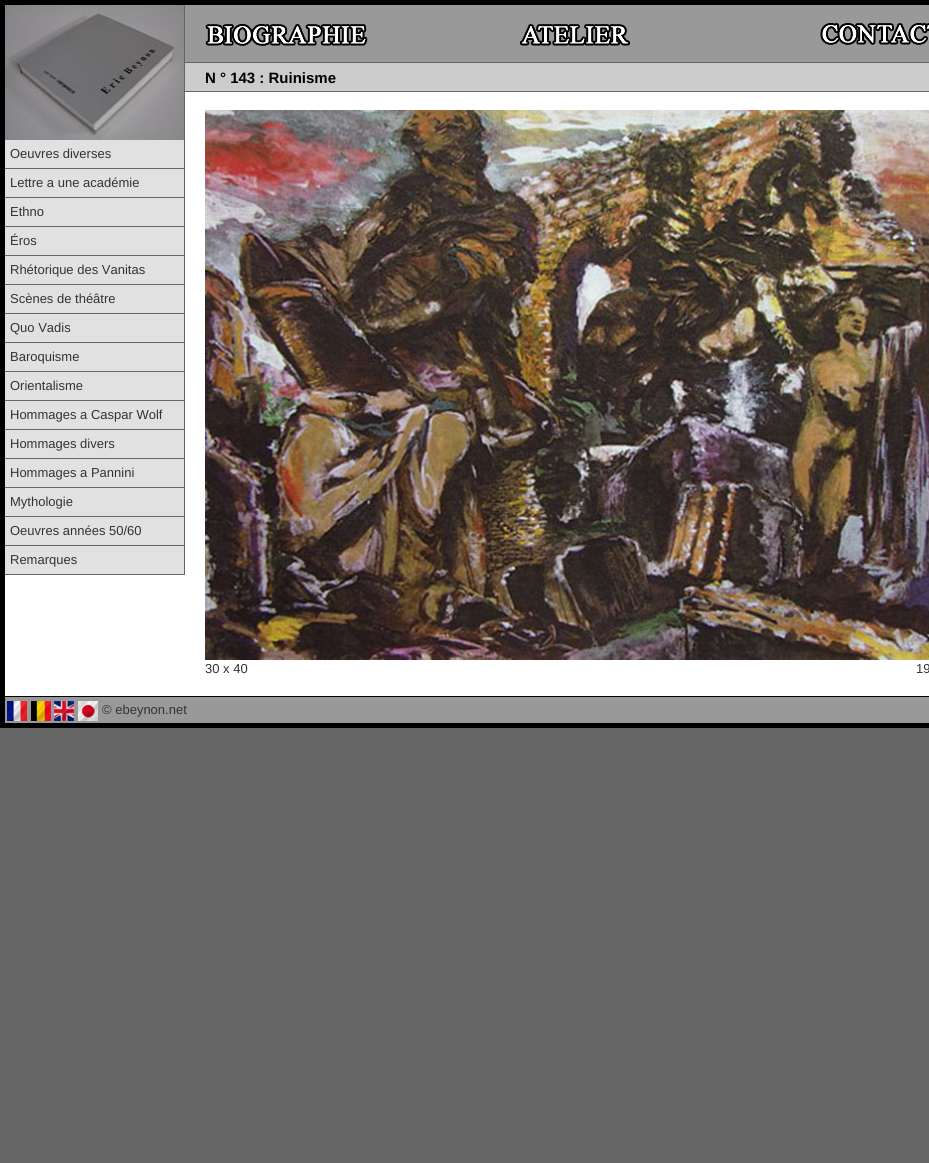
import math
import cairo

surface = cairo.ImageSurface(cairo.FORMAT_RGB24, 929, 1163)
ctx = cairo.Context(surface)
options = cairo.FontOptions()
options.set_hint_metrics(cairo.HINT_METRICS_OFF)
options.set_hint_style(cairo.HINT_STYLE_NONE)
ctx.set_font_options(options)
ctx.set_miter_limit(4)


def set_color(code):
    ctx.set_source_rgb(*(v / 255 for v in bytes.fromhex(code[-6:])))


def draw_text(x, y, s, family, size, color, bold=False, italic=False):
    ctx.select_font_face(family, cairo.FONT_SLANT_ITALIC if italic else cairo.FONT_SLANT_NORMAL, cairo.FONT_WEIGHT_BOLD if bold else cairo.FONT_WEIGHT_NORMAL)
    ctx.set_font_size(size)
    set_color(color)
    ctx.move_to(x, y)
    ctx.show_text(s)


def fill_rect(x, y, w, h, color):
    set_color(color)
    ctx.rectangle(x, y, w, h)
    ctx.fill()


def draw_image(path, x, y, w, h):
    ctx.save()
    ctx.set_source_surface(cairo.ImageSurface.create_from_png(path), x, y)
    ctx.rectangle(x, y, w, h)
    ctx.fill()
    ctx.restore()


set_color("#666666")
ctx.paint()
fill_rect(5, 92, 924, 604, "#ffffff")
fill_rect(0, 0, 929, 5, "#000000")
fill_rect(0, 0, 5, 728, "#000000")
fill_rect(5, 140, 179, 434, "#e1e1e1")
fill_rect(184, 92, 1, 483, "#666666")
draw_image("assets/img1.png", 5, 5, 179, 135)
fill_rect(5, 168, 179, 1, "#666666")
draw_text(10, 158, "Oeuvres diverses", "Liberation Sans", 13, "#333333")
fill_rect(5, 197, 179, 1, "#666666")
draw_text(10, 187, "Lettre a une académie", "Liberation Sans", 13, "#333333")
fill_rect(5, 226, 179, 1, "#666666")
draw_text(10, 216, "Ethno", "Liberation Sans", 13, "#333333")
fill_rect(5, 255, 179, 1, "#666666")
draw_text(10, 245, "Éros", "Liberation Sans", 13, "#333333")
fill_rect(5, 284, 179, 1, "#666666")
draw_text(10, 274, "Rhétorique des Vanitas", "Liberation Sans", 13, "#333333")
fill_rect(5, 313, 179, 1, "#666666")
draw_text(10, 303, "Scènes de théâtre", "Liberation Sans", 13, "#333333")
fill_rect(5, 342, 179, 1, "#666666")
draw_text(10, 332, "Quo Vadis", "Liberation Sans", 13, "#333333")
fill_rect(5, 371, 179, 1, "#666666")
draw_text(10, 361, "Baroquisme", "Liberation Sans", 13, "#333333")
fill_rect(5, 400, 179, 1, "#666666")
draw_text(10, 390, "Orientalisme", "Liberation Sans", 13, "#333333")
fill_rect(5, 429, 179, 1, "#666666")
draw_text(10, 419, "Hommages a Caspar Wolf", "Liberation Sans", 13, "#333333")
fill_rect(5, 458, 179, 1, "#666666")
draw_text(10, 448, "Hommages divers", "Liberation Sans", 13, "#333333")
fill_rect(5, 487, 179, 1, "#666666")
draw_text(10, 477, "Hommages a Pannini", "Liberation Sans", 13, "#333333")
fill_rect(5, 516, 179, 1, "#666666")
draw_text(10, 506, "Mythologie", "Liberation Sans", 13, "#333333")
fill_rect(5, 545, 179, 1, "#666666")
draw_text(10, 535, "Oeuvres années 50/60", "Liberation Sans", 13, "#333333")
fill_rect(5, 574, 179, 1, "#666666")
draw_text(10, 564, "Remarques", "Liberation Sans", 13, "#333333")
fill_rect(185, 5, 744, 18, "#999999")
fill_rect(185, 23, 635, 1, "#999999")
draw_image("assets/img2.png", 820, 23, 109, 22)
fill_rect(185, 24, 20, 38, "#999999")
draw_image("assets/img3.png", 205, 24, 163, 22)
fill_rect(368, 24, 151, 38, "#999999")
draw_image("assets/img4.png", 519, 24, 112, 22)
fill_rect(631, 24, 189, 38, "#999999")
fill_rect(820, 45, 109, 17, "#999999")
fill_rect(205, 46, 163, 16, "#999999")
fill_rect(519, 46, 112, 16, "#999999")
fill_rect(185, 63, 744, 28, "#cccccc")
draw_text(205, 83, "N ° 143 : Ruinisme", "Liberation Sans", 15, "#000000", bold=True)
draw_image("assets/img5.png", 205, 110, 724, 550)
draw_text(205, 673, "30 x 40", "Liberation Sans", 13, "#333333")
draw_text(916, 673, "19", "Liberation Sans", 13, "#333333")
fill_rect(5, 697, 924, 26, "#999999")
fill_rect(5, 696, 924, 1, "#000000")
fill_rect(5, 723, 924, 5, "#000000")
draw_image("assets/img6.png", 7, 701, 20, 20)
draw_image("assets/img7.png", 31, 701, 20, 20)
draw_image("assets/img8.png", 54, 701, 20, 20)
draw_image("assets/img9.png", 78, 701, 20, 20)
draw_text(102, 714, "© ebeynon.net", "Liberation Sans", 13, "#333333")
surface.write_to_png("output.png")
